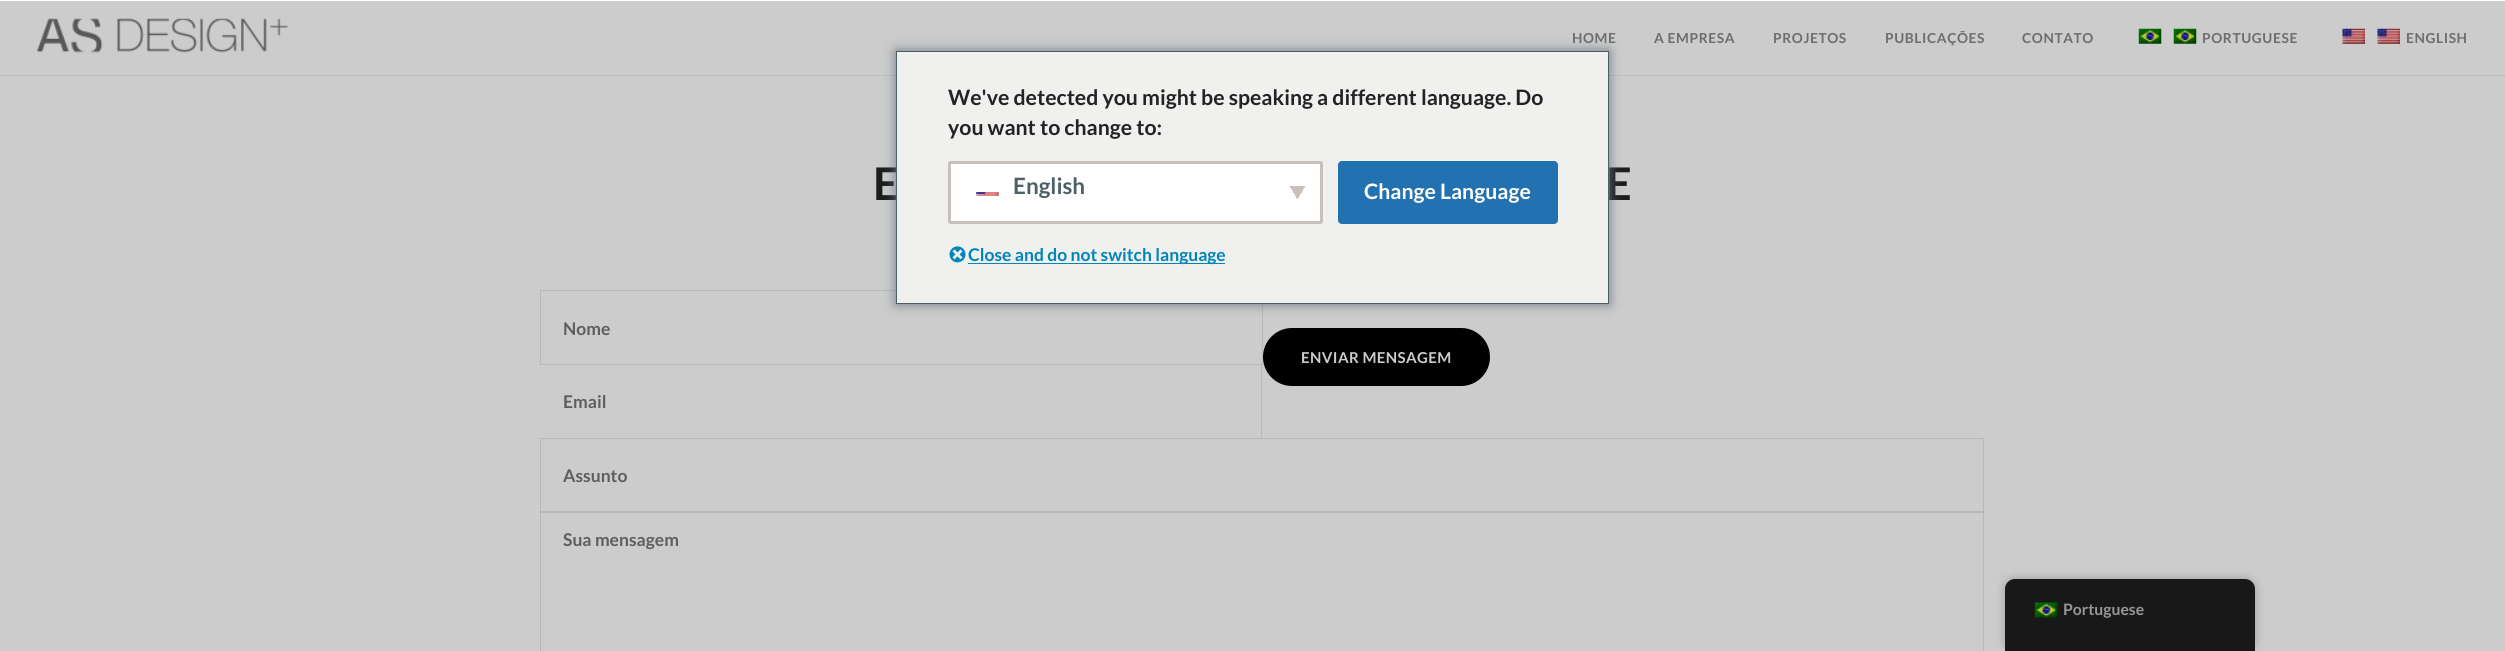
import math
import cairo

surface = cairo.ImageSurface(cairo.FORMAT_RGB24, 2505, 651)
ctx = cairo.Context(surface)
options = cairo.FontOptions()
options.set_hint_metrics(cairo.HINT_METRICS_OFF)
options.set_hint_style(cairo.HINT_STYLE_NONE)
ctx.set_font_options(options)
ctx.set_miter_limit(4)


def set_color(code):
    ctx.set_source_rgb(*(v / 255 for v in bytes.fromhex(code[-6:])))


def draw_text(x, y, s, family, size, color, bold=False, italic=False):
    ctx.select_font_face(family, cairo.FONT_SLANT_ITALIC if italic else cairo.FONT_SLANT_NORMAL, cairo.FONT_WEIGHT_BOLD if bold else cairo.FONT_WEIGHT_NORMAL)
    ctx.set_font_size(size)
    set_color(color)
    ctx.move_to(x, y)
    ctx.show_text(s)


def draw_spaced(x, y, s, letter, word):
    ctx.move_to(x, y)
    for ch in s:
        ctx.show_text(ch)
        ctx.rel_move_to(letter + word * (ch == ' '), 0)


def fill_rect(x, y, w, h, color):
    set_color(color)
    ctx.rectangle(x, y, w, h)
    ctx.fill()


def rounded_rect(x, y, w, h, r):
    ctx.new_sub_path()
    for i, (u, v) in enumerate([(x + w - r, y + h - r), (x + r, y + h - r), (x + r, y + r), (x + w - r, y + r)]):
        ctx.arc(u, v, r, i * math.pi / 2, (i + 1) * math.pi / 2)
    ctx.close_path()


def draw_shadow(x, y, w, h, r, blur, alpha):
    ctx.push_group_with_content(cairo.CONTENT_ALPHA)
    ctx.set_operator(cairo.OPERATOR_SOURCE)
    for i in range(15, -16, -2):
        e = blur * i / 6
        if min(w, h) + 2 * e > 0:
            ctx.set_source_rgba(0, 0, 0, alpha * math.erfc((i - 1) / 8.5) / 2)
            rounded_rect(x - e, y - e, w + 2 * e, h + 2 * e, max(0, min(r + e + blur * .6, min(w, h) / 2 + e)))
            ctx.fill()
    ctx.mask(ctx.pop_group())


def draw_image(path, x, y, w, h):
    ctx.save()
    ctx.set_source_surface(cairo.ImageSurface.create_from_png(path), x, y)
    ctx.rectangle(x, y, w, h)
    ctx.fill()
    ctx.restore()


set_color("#ffffff")
ctx.paint()
fill_rect(0, 1, 2505, 650, "#cccccc")
fill_rect(0, 75, 2505, 1, "#bebebe")
draw_image("assets/img1.png", 37, 18, 251, 35)
ctx.select_font_face("Lato", cairo.FONT_SLANT_NORMAL, cairo.FONT_WEIGHT_BOLD)
ctx.set_font_size(13.75)
set_color("#6d6d6d")
draw_spaced(1572, 43, "HOME", 0.6, 0)
draw_spaced(1654, 43, "A EMPRESA", 0.6, 0)
draw_spaced(1773, 43, "PROJETOS", 0.6, 0)
draw_spaced(1885, 43, "PUBLICAÇÕES", 0.6, 0)
draw_spaced(2022, 43, "CONTATO", 0.6, 0)
draw_image("assets/img2.png", 2138, 28, 24, 16)
draw_image("assets/img2.png", 2173, 28, 24, 16)
draw_spaced(2202, 43, "PORTUGUESE", 0.6, 0)
draw_image("assets/img3.png", 2342, 28, 23, 16)
draw_image("assets/img3.png", 2377, 28, 23, 16)
draw_spaced(2406, 43, "ENGLISH", 0.6, 0)
draw_text(873, 200, "E", "Lato", 45, "#1c1c1c", bold=True)
draw_text(1606, 200, "E", "Lato", 45, "#1c1c1c", bold=True)
ctx.rectangle(540.5, 290.5, 722, 74)
set_color("#b7b7b7")
ctx.set_line_width(1)
ctx.stroke()
draw_text(563, 335, "Nome", "Lato", 17.5, "#5e5e5e", bold=True)
set_color("#000000")
rounded_rect(1263, 328, 227, 58, 29)
ctx.fill()
ctx.set_font_size(15)
set_color("#cccccc")
draw_spaced(1301, 363, "ENVIAR MENSAGEM", 0.4, 0)
fill_rect(1261, 364, 1, 75, "#b7b7b7")
draw_text(563, 408, "Email", "Lato", 17.5, "#5e5e5e", bold=True)
ctx.rectangle(540.5, 438.5, 1443, 74)
set_color("#b7b7b7")
ctx.stroke()
draw_text(563, 482, "Assunto", "Lato", 17.5, "#5e5e5e", bold=True)
ctx.rectangle(540.5, 511.5, 1443, 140)
set_color("#b7b7b7")
ctx.stroke()
draw_text(563, 546, "Sua mensagem", "Lato", 17.5, "#5e5e5e", bold=True)
set_color("#6c7781")
draw_shadow(896, 51, 713, 253, 0, 6, 1)
set_color("#f0f0ee")
ctx.rectangle(896.5, 51.5, 712, 252)
ctx.fill_preserve()
set_color("#4c6066")
ctx.stroke()
draw_text(948, 105, "We've detected you might be speaking a different language. Do", "Lato", 21.25, "#232323", bold=True)
draw_text(948, 135, "you want to change to:", "Lato", 21.25, "#232323", bold=True)
set_color("#ffffff")
rounded_rect(948, 161, 375, 63, 2.5)
ctx.fill()
gradient = cairo.LinearGradient(1295, 190, 1307, 197)
gradient.add_color_stop_rgba(0.5, 0.788, 0.753, 0.733, 1)
gradient.add_color_stop_rgba(0.5, 1, 1, 1, 1)
ctx.set_source(gradient)
ctx.rectangle(1298, 186, 7, 15)
ctx.fill()
gradient = cairo.LinearGradient(1288, 197, 1300, 190)
gradient.add_color_stop_rgba(0.5, 1, 1, 1, 1)
gradient.add_color_stop_rgba(0.5, 0.788, 0.753, 0.733, 1)
ctx.set_source(gradient)
ctx.rectangle(1290, 186, 8, 15)
ctx.fill()
rounded_rect(949.5, 162.5, 372, 60, 1)
set_color("#c9c0bb")
ctx.set_line_width(3)
ctx.stroke()
draw_image("assets/img4.png", 976, 192, 23, 4)
draw_text(1013, 194, "English", "Lato", 22.5, "#4c6066", bold=True)
set_color("#2271b1")
rounded_rect(1338.5, 161.5, 219, 62, 3.5)
ctx.fill_preserve()
ctx.set_line_width(1)
ctx.stroke()
draw_text(1364, 199, "Change Language", "Lato", 21.25, "#ffffff", bold=True)
draw_image("assets/img5.png", 949, 246, 17, 17)
fill_rect(968, 263, 257, 1, "#0085ba")
draw_text(968, 261, "Close and do not switch language", "Lato", 17.5, "#0085ba", bold=True)
set_color("#000000")
draw_shadow(2005, 579, 250, 72, 10, 5, 0.25)
set_color("#181818")
ctx.new_path()
ctx.move_to(2015, 579)
ctx.line_to(2245, 579)
ctx.curve_to(2250.5, 579, 2255, 583.5, 2255, 589)
ctx.line_to(2255, 651)
ctx.line_to(2005, 651)
ctx.line_to(2005, 589)
ctx.curve_to(2005, 583.5, 2009.5, 579, 2015, 579)
ctx.close_path()
ctx.fill()
draw_image("assets/img6.png", 2034, 602, 24, 16)
draw_text(2063, 615, "Portuguese", "Lato", 15.75, "#979797", bold=True)
surface.write_to_png("output.png")
